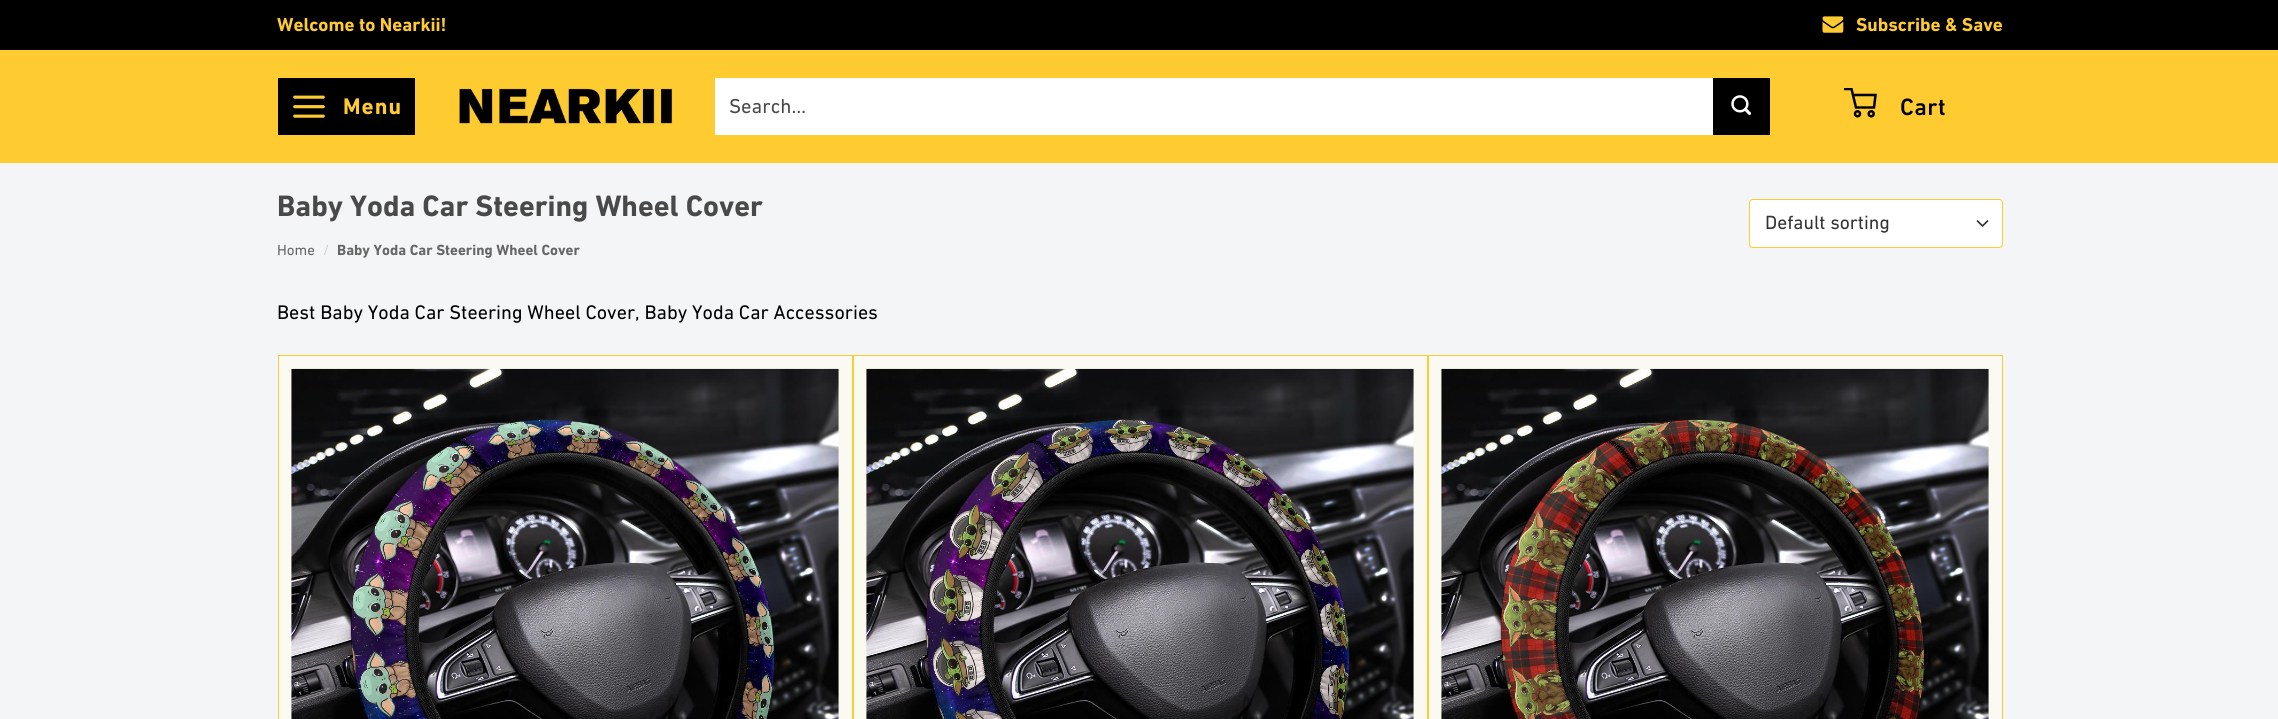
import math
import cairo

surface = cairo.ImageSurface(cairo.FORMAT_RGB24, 2278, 719)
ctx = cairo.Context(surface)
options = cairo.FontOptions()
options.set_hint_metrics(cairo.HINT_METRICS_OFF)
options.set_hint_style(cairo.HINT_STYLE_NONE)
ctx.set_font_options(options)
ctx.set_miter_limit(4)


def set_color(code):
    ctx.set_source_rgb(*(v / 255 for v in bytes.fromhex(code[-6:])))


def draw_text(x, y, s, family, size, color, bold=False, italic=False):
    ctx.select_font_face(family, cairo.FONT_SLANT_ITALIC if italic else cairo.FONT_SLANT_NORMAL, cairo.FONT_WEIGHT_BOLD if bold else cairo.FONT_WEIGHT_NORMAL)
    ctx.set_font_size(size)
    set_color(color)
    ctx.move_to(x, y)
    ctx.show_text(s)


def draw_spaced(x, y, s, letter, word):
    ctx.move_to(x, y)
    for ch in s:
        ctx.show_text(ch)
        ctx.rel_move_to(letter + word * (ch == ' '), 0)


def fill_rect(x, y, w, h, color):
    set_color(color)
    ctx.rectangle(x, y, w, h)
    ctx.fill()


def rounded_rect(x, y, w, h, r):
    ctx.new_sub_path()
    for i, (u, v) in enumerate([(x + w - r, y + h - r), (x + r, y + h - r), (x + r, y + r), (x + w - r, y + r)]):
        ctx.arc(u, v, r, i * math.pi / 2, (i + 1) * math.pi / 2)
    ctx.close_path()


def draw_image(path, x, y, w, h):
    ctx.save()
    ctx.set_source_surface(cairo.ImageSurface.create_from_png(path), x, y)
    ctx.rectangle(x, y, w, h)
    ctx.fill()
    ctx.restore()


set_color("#f3f5f6")
ctx.paint()
fill_rect(0, 0, 2278, 50, "#000000")
draw_text(277, 31, "Welcome to Nearkii!", "Din Next", 19, "#fecb30", bold=True)
draw_image("assets/img1.png", 1822, 16, 22, 17)
draw_text(1856, 31, "Subscribe & Save", "Din Next", 19, "#fecb30", bold=True)
fill_rect(0, 50, 2278, 113, "#fecb30")
fill_rect(278, 78, 137, 57, "#000000")
draw_image("assets/img2.png", 293, 95, 32, 23)
ctx.set_font_size(23)
set_color("#fecb30")
draw_spaced(343, 114, "Menu", 1, 0)
draw_image("assets/img3.png", 459, 88, 214, 36)
fill_rect(715, 78, 998, 57, "#ffffff")
draw_text(729, 113, "Search…", "Din Next", 20.5, "#494949")
fill_rect(1713, 78, 57, 57, "#000000")
draw_image("assets/img4.png", 1731, 95, 20, 20)
ctx.arc(1857.5, 113.8, 2.5, 0, 2 * math.pi)
ctx.set_line_width(2.5)
ctx.stroke()
ctx.arc(1871.2, 113.8, 2.5, 0, 2 * math.pi)
ctx.stroke()
ctx.save()
ctx.rectangle(1844, 88, 34, 30)
ctx.clip()
ctx.new_path()
ctx.move_to(1853, 95)
ctx.line_to(1875.5, 95)
ctx.line_to(1874, 107.5)
ctx.line_to(1856, 107.5)
ctx.line_to(1851.5, 89)
ctx.line_to(1844, 89)
ctx.stroke()
ctx.restore()
ctx.select_font_face("Din Next Medium")
ctx.set_font_size(24)
draw_spaced(1900, 115, "Cart", 0.5, 0)
draw_text(277, 216, "Baby Yoda Car Steering Wheel Cover", "Din Next", 30, "#494949", bold=True)
draw_text(277, 255, "Home", "Din Next", 15, "#666666")
draw_text(323, 255, "/", "Din Next", 15, "#cecfd0")
draw_text(337, 255, "Baby Yoda Car Steering Wheel Cover", "Din Next", 15, "#666666", bold=True)
set_color("#ffffff")
rounded_rect(1749, 199, 254, 49, 4)
ctx.fill()
ctx.new_path()
ctx.move_to(1977.5, 221)
ctx.line_to(1982.5, 226)
ctx.line_to(1987.5, 221)
set_color("#333333")
ctx.set_line_width(1.7)
ctx.set_line_cap(cairo.LINE_CAP_ROUND)
ctx.set_line_join(cairo.LINE_JOIN_ROUND)
ctx.stroke()
rounded_rect(1749.5, 199.5, 253, 48, 3.5)
set_color("#fecb30")
ctx.set_line_width(1)
ctx.set_line_cap(cairo.LINE_CAP_BUTT)
ctx.set_line_join(cairo.LINE_JOIN_MITER)
ctx.stroke()
draw_text(1765, 229, "Default sorting", "Din Next", 19.5, "#333333")
draw_text(277, 319, "Best Baby Yoda Car Steering Wheel Cover, Baby Yoda Car Accessories", "Din Next", 20, "#000000")
set_color("#faf9f2")
ctx.rectangle(278.5, 355.5, 574, 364)
ctx.fill_preserve()
set_color("#fecb30")
ctx.stroke()
draw_image("assets/img5.png", 291, 368, 548, 351)
set_color("#faf9f2")
ctx.rectangle(853.5, 355.5, 574, 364)
ctx.fill_preserve()
set_color("#fecb30")
ctx.stroke()
draw_image("assets/img6.png", 866, 368, 548, 351)
set_color("#faf9f2")
ctx.rectangle(1428.5, 355.5, 574, 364)
ctx.fill_preserve()
set_color("#fecb30")
ctx.stroke()
draw_image("assets/img7.png", 1441, 368, 548, 351)
surface.write_to_png("output.png")
